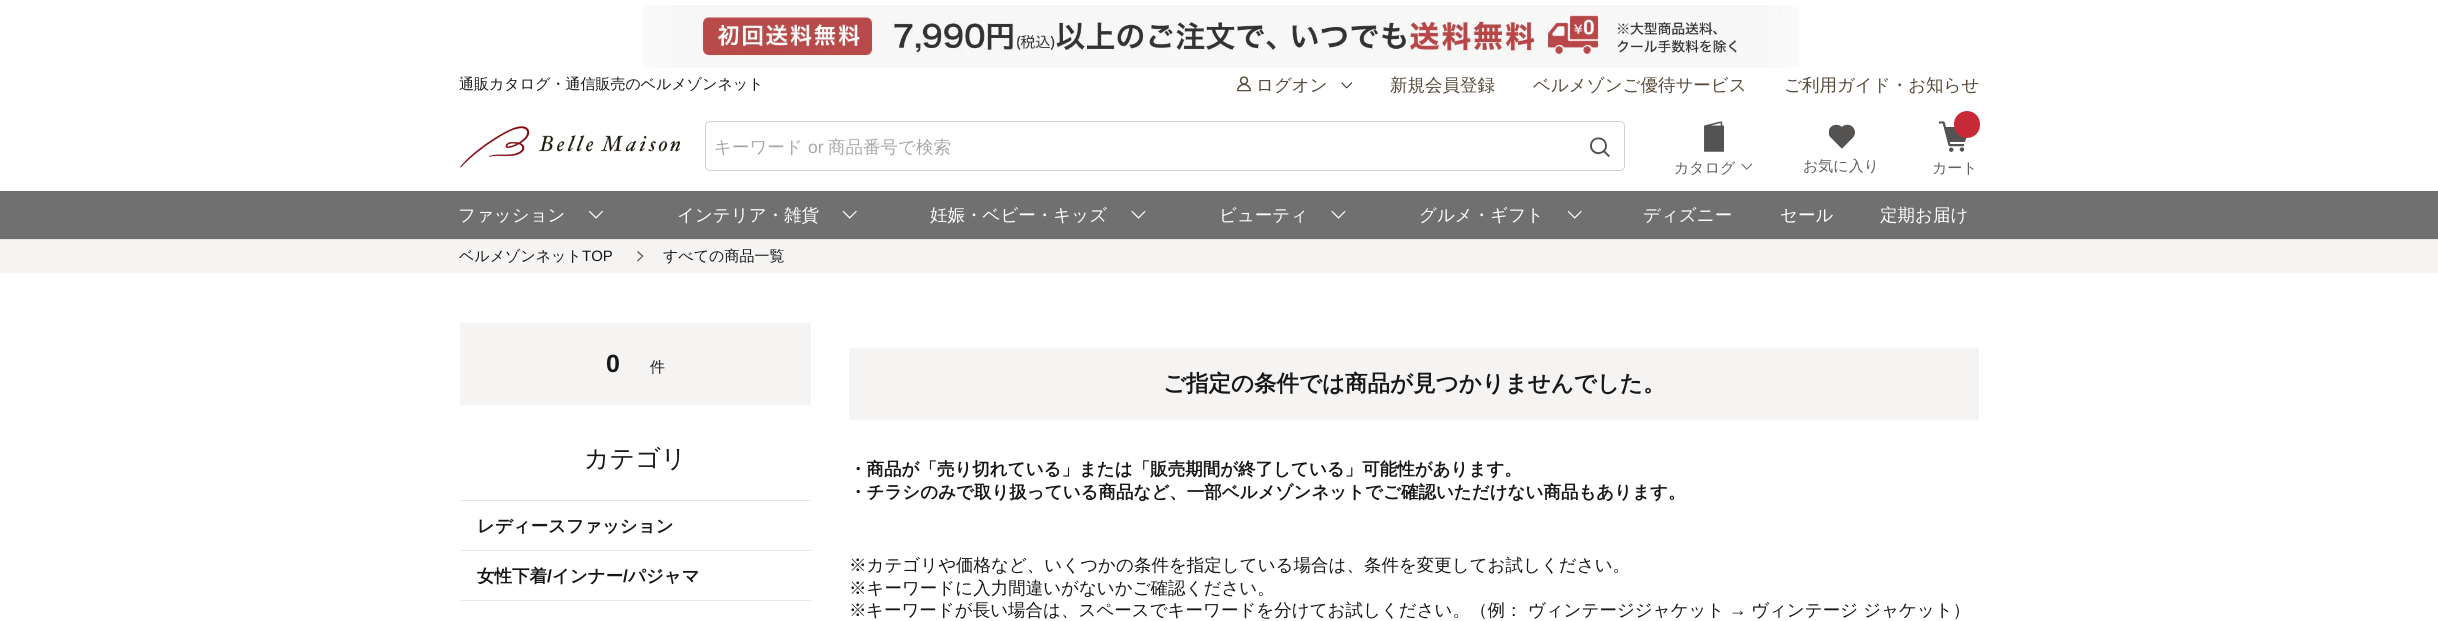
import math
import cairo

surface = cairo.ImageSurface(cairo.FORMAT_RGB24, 2438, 621)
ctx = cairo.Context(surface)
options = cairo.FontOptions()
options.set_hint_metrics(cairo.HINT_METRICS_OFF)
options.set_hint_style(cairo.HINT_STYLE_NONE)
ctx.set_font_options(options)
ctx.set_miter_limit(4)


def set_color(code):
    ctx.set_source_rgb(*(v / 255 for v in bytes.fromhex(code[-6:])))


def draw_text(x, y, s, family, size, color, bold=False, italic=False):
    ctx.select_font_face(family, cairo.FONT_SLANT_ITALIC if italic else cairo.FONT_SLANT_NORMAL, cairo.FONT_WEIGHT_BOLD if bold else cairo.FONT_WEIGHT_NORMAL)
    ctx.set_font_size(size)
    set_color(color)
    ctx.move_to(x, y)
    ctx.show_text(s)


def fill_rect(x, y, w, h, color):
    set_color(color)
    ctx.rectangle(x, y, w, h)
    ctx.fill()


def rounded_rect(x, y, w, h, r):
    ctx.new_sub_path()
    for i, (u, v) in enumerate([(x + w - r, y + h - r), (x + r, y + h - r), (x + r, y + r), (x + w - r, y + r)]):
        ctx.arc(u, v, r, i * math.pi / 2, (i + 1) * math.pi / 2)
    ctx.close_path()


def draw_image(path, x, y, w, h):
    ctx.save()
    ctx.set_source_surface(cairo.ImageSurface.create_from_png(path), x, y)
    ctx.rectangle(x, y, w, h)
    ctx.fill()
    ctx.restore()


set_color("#ffffff")
ctx.paint()
fill_rect(0, 239, 2438, 1, "#e6e6e6")
draw_image("assets/img1.png", 643, 5, 1156, 63)
draw_text(459, 89, "通販カタログ・通信販売のベルメゾンネット", "WenQuanYi Zen Hei Medium", 15, "#171717")
draw_image("assets/img2.png", 1237, 76, 14, 16)
draw_text(1256, 91, "ログオン", "WenQuanYi Zen Hei Medium", 17.5, "#574a3a")
draw_image("assets/img3.png", 1341, 82, 11, 7)
draw_text(1390, 91, "新規会員登録", "WenQuanYi Zen Hei Medium", 17.5, "#574a3a")
draw_text(1533, 91, "ベルメゾンご優待サービス", "WenQuanYi Zen Hei Medium", 17.5, "#574a3a")
draw_text(1784, 91, "ご利用ガイド・お知らせ", "WenQuanYi Zen Hei Medium", 17.5, "#574a3a")
draw_image("assets/img4.png", 460, 126, 220, 42)
rounded_rect(705.5, 121.5, 919, 49, 4.5)
set_color("#d2d1d1")
ctx.set_line_width(1)
ctx.stroke()
draw_text(714, 153, "キーワード", "WenQuanYi Zen Hei Medium", 17.5, "#a9a8a8")
draw_text(808, 153, "or", "Liberation Sans", 17.5, "#a9a8a8")
draw_text(828, 153, "商品番号で検索", "WenQuanYi Zen Hei Medium", 17.5, "#a9a8a8")
draw_image("assets/img5.png", 1590, 137, 20, 20)
draw_image("assets/img6.png", 1704, 121, 20, 31)
draw_text(1674, 173, "カタログ", "WenQuanYi Zen Hei Medium", 15, "#615e5e")
draw_image("assets/img7.png", 1741, 163, 11, 7)
draw_image("assets/img8.png", 1828, 124, 27, 25)
draw_text(1803, 171, "お気に入り", "WenQuanYi Zen Hei Medium", 15, "#615e5e")
draw_image("assets/img9.png", 1938, 121, 29, 31)
set_color("#c72937")
rounded_rect(1954, 111, 26, 27, 13)
ctx.fill()
draw_text(1932, 173, "カート", "WenQuanYi Zen Hei Medium", 15, "#615e5e")
fill_rect(0, 191, 2438, 48, "#707070")
draw_text(458, 221, "ファッション", "WenQuanYi Zen Hei Medium", 17.5, "#ffffff")
draw_image("assets/img10.png", 589, 210, 14, 9)
draw_text(677, 221, "インテリア・雑貨", "WenQuanYi Zen Hei Medium", 17.5, "#ffffff")
draw_image("assets/img11.png", 842, 210, 15, 9)
draw_text(930, 221, "妊娠・ベビー・キッズ", "WenQuanYi Zen Hei Medium", 17.5, "#ffffff")
draw_image("assets/img12.png", 1131, 210, 15, 9)
draw_text(1219, 221, "ビューティ", "WenQuanYi Zen Hei Medium", 17.5, "#ffffff")
draw_image("assets/img12.png", 1331, 210, 15, 9)
draw_text(1419, 221, "グルメ・ギフト", "WenQuanYi Zen Hei Medium", 17.5, "#ffffff")
draw_image("assets/img11.png", 1567, 210, 15, 9)
draw_text(1643, 221, "ディズニー", "WenQuanYi Zen Hei Medium", 17.5, "#ffffff")
draw_text(1780, 221, "セール", "WenQuanYi Zen Hei Medium", 17.5, "#ffffff")
draw_text(1880, 221, "定期お届け", "WenQuanYi Zen Hei Medium", 17.5, "#ffffff")
fill_rect(0, 240, 2438, 33, "#f6f4f3")
draw_text(459, 261, "ベルメゾンネット", "WenQuanYi Zen Hei Medium", 15, "#171717")
draw_text(582, 261, "TOP", "Liberation Sans", 15, "#171717")
set_color("#615e5e")
ctx.new_path()
ctx.move_to(637, 252)
ctx.line_to(638, 251)
ctx.line_to(643.5, 256)
ctx.line_to(642.5, 257)
ctx.close_path()
ctx.fill()
ctx.new_path()
ctx.move_to(637, 260.5)
ctx.line_to(642.5, 255.5)
ctx.line_to(643.5, 256)
ctx.line_to(638, 261.5)
ctx.close_path()
ctx.fill()
draw_text(663, 261, "すべての商品一覧", "WenQuanYi Zen Hei Medium", 15, "#171717")
fill_rect(460, 323, 351, 82, "#f6f4f3")
draw_text(606, 372, "0", "Liberation Sans", 25, "#171717", bold=True)
draw_text(650, 372, "件", "WenQuanYi Zen Hei Medium", 15, "#171717")
draw_text(584, 467, "カテゴリ", "WenQuanYi Zen Hei Medium", 25, "#171717")
fill_rect(460, 500, 351, 1, "#e8e8e8")
draw_text(477, 532, "レディースファッション", "WenQuanYi Zen Hei", 17.5, "#171717", bold=True)
fill_rect(460, 550, 351, 1, "#e8e8e8")
draw_text(477, 582, "女性下着", "WenQuanYi Zen Hei", 17.5, "#171717", bold=True)
draw_text(547, 582, "/", "Liberation Sans", 17.5, "#171717", bold=True)
draw_text(552, 582, "インナー", "WenQuanYi Zen Hei", 17.5, "#171717", bold=True)
draw_text(623, 582, "/", "Liberation Sans", 17.5, "#171717", bold=True)
draw_text(628, 582, "パジャマ", "WenQuanYi Zen Hei", 17.5, "#171717", bold=True)
fill_rect(460, 600, 351, 1, "#e8e8e8")
fill_rect(849, 348, 1130, 72, "#f6f4f3")
draw_text(1163, 391, "ご指定の条件では商品が見つかりませんでした。", "WenQuanYi Zen Hei", 22.5, "#171717", bold=True)
draw_text(849, 475, "・商品が「売り切れている」または「販売期間が終了している」可能性があります。", "WenQuanYi Zen Hei", 17.5, "#171717", bold=True)
draw_text(849, 498, "・チラシのみで取り扱っている商品など、一部ベルメゾンネットでご確認いただけない商品もあります。", "WenQuanYi Zen Hei", 17.5, "#171717", bold=True)
draw_text(849, 571, "※カテゴリや価格など、いくつかの条件を指定している場合は、条件を変更してお試しください。", "WenQuanYi Zen Hei Medium", 17.5, "#171717")
draw_text(849, 594, "※キーワードに入力間違いがないかご確認ください。", "WenQuanYi Zen Hei Medium", 17.5, "#171717")
draw_text(849, 616, "※", "WenQuanYi Zen Hei Medium", 17.5, "#171717")
draw_text(866, 616, "キーワードが長い場合は、スペースでキーワードを分けてお試しください。（例： ヴィンテージジャケット", "WenQuanYi Zen Hei Medium", 17.5, "#171717")
draw_text(1729, 616, "→", "Liberation Sans", 17.5, "#171717")
draw_text(1751, 616, "ヴィンテージ ジャケット）", "WenQuanYi Zen Hei Medium", 17.5, "#171717")
surface.write_to_png("output.png")
